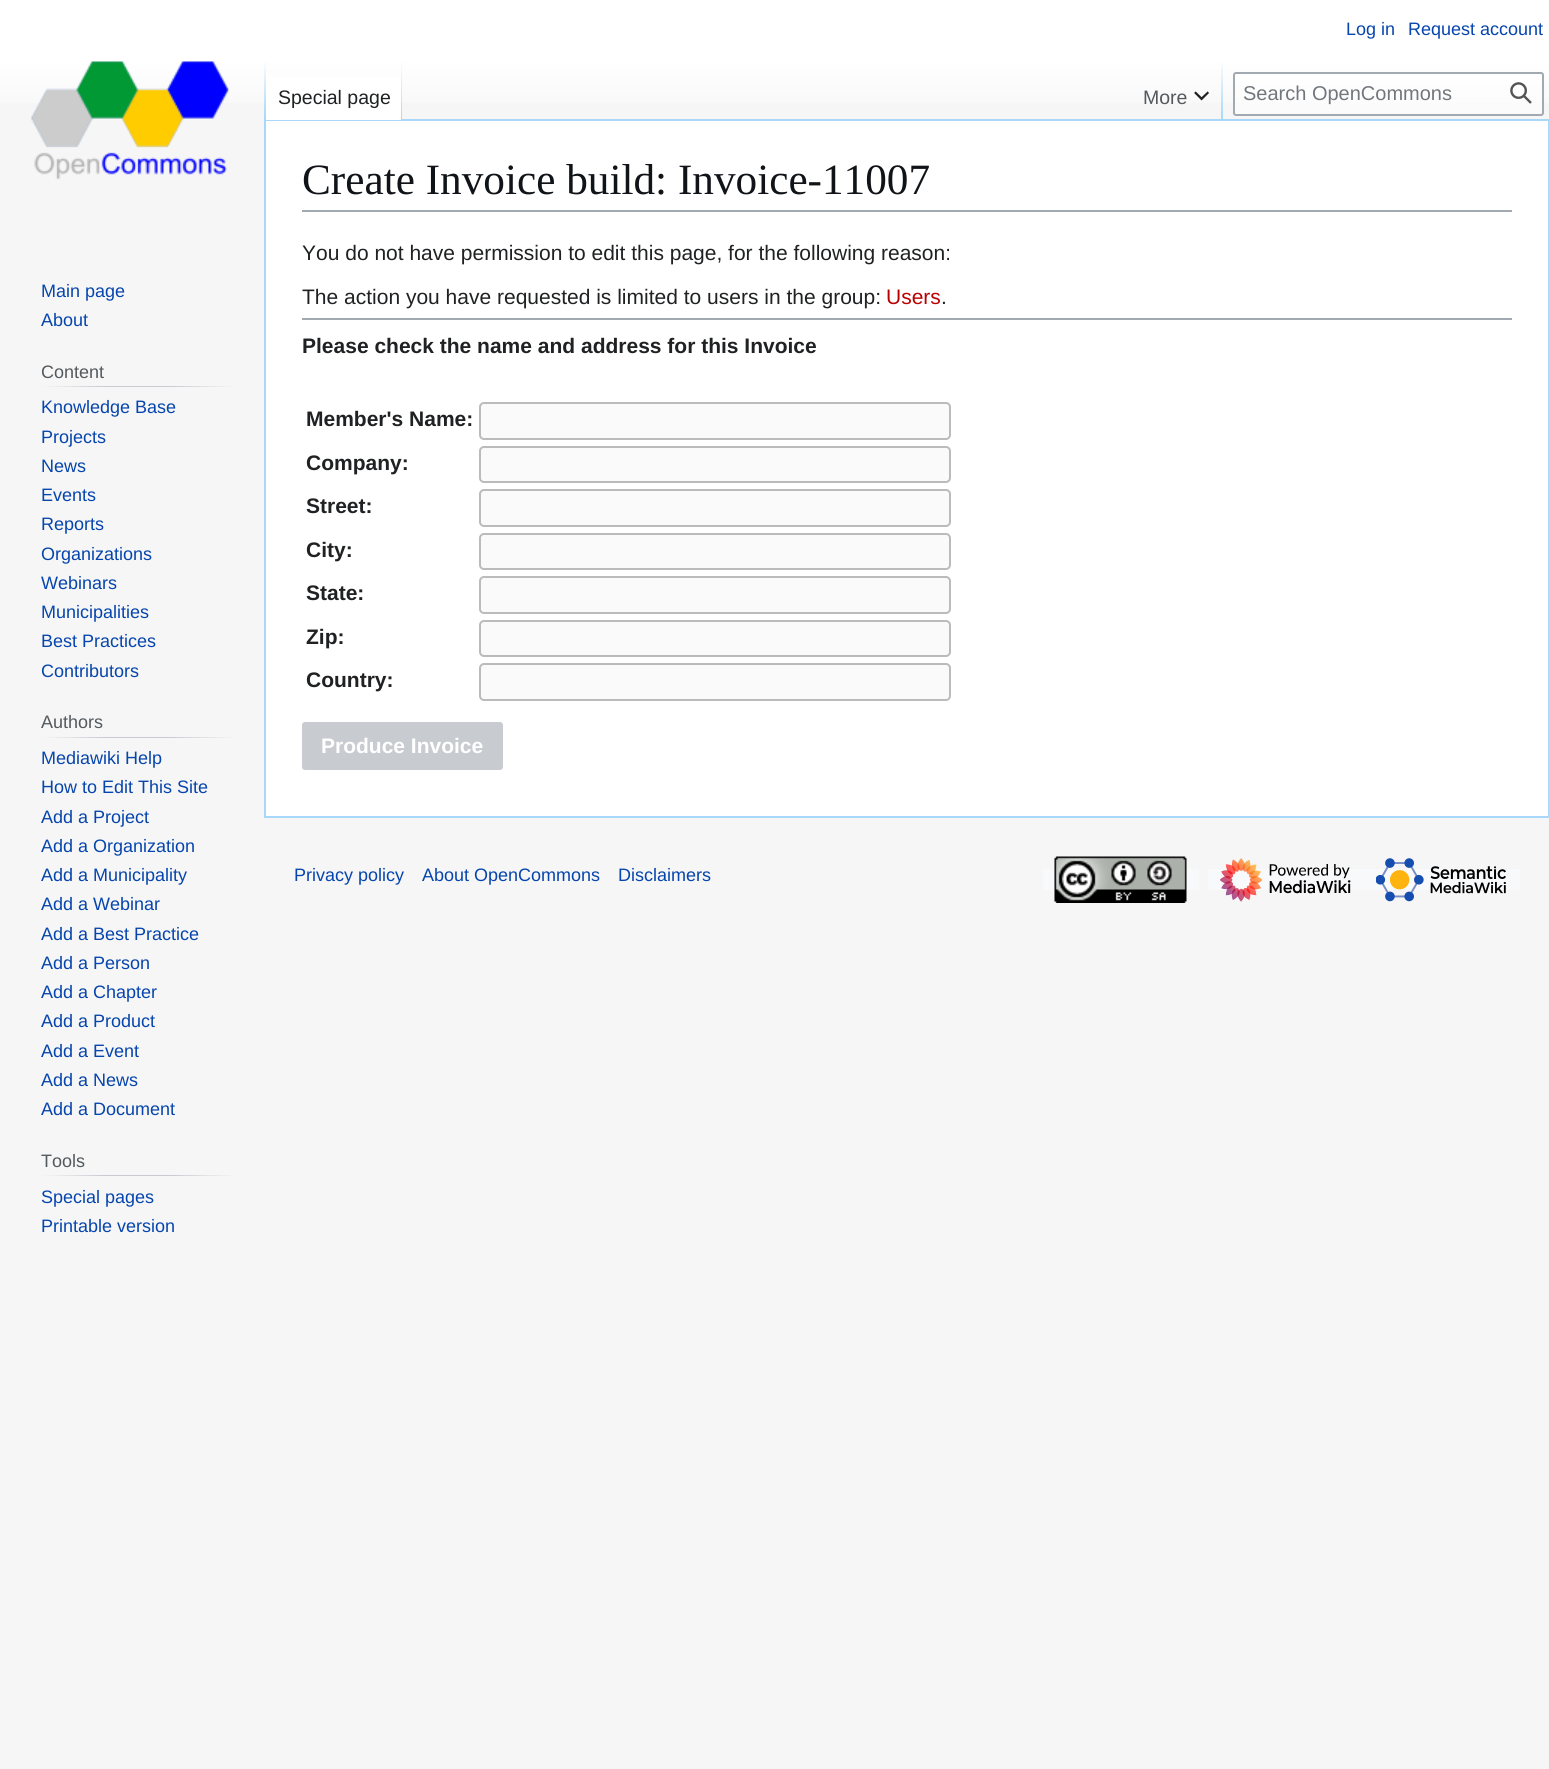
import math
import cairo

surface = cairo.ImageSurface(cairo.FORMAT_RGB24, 1549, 1769)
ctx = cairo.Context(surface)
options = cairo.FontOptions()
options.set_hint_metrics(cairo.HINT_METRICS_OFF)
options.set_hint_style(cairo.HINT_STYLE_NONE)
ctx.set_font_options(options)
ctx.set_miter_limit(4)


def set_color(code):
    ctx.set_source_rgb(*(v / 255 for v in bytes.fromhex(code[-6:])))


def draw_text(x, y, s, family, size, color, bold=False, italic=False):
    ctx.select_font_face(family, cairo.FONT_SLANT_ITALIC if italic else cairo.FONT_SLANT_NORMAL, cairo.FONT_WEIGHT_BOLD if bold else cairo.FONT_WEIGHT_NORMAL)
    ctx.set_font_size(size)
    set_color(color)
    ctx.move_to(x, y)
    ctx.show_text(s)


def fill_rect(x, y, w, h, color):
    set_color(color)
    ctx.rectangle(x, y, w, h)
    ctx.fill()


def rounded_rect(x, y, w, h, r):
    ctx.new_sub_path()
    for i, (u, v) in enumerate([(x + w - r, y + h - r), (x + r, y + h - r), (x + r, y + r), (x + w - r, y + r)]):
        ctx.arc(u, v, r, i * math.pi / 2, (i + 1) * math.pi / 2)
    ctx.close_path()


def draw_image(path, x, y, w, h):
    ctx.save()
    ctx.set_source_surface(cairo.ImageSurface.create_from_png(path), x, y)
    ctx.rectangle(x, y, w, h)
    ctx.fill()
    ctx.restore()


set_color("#f6f6f6")
ctx.paint()
gradient = cairo.LinearGradient(775, 0, 775, 120)
gradient.add_color_stop_rgba(0.5, 1, 1, 1, 1)
gradient.add_color_stop_rgba(1, 0.965, 0.965, 0.965, 1)
ctx.set_source(gradient)
ctx.rectangle(0, 0, 1549, 103)
ctx.fill()
draw_text(1346, 35, "Log in", "Liberation Sans", 18, "#0645ad")
draw_text(1408, 35, "Request account", "Liberation Sans", 18, "#0645ad")
set_color("#ffffff")
ctx.rectangle(265, 120, 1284, 697)
ctx.fill_preserve()
set_color("#a7d7f9")
ctx.stroke()
gradient = cairo.LinearGradient(265, 60, 265, 120)
gradient.add_color_stop_rgba(0, 0.655, 0.843, 0.976, 0)
gradient.add_color_stop_rgba(1, 0.655, 0.843, 0.976, 1)
ctx.set_source(gradient)
ctx.rectangle(264, 60, 2, 60)
ctx.fill()
fill_rect(266, 77, 135, 43, "#ffffff")
gradient = cairo.LinearGradient(401, 60, 401, 120)
gradient.add_color_stop_rgba(0, 1, 1, 1, 1)
gradient.add_color_stop_rgba(1, 0.655, 0.843, 0.976, 1)
ctx.set_source(gradient)
ctx.rectangle(401, 60, 1, 60)
ctx.fill()
draw_text(278, 104, "Special page", "Liberation Sans", 19.5, "#202122")
gradient = cairo.LinearGradient(1222, 60, 1222, 120)
gradient.add_color_stop_rgba(0, 0.655, 0.843, 0.976, 0)
gradient.add_color_stop_rgba(1, 0.655, 0.843, 0.976, 1)
ctx.set_source(gradient)
ctx.rectangle(1221, 60, 2, 60)
ctx.fill()
draw_text(1143, 104, "More", "Liberation Sans", 19.5, "#54595d")
draw_image("assets/img1.png", 1194, 91, 15, 10)
ctx.set_source_rgba(1, 1, 1, 0.5)
rounded_rect(1234, 73, 309, 42, 2)
ctx.fill_preserve()
set_color("#a2a9b1")
ctx.stroke()
draw_text(1243, 100, "Search OpenCommons", "Liberation Sans", 20, "#72777d")
draw_image("assets/img2.png", 1510, 82, 22, 22)
draw_image("assets/img3.png", 31, 61, 198, 119)
draw_text(41, 297, "Main page", "Liberation Sans", 18, "#0645ad")
draw_text(41, 326, "About", "Liberation Sans", 18, "#0645ad")
gradient = cairo.LinearGradient(41, 386, 237, 386)
gradient.add_color_stop_rgba(0, 0.965, 0.965, 0.965, 1)
gradient.add_color_stop_rgba(0.33, 0.784, 0.8, 0.82, 1)
gradient.add_color_stop_rgba(0.66, 0.784, 0.8, 0.82, 1)
gradient.add_color_stop_rgba(1, 0.965, 0.965, 0.965, 1)
ctx.set_source(gradient)
ctx.rectangle(41, 386, 196, 1)
ctx.fill()
draw_text(41, 378, "Content", "Liberation Sans", 18, "#54595d")
draw_text(41, 413, "Knowledge Base", "Liberation Sans", 18, "#0645ad")
draw_text(41, 443, "Projects", "Liberation Sans", 18, "#0645ad")
draw_text(41, 472, "News", "Liberation Sans", 18, "#0645ad")
draw_text(41, 501, "Events", "Liberation Sans", 18, "#0645ad")
draw_text(41, 530, "Reports", "Liberation Sans", 18, "#0645ad")
draw_text(41, 560, "Organizations", "Liberation Sans", 18, "#0645ad")
draw_text(41, 589, "Webinars", "Liberation Sans", 18, "#0645ad")
draw_text(41, 618, "Municipalities", "Liberation Sans", 18, "#0645ad")
draw_text(41, 647, "Best Practices", "Liberation Sans", 18, "#0645ad")
draw_text(41, 677, "Contributors", "Liberation Sans", 18, "#0645ad")
gradient = cairo.LinearGradient(41, 737, 237, 737)
gradient.add_color_stop_rgba(0, 0.965, 0.965, 0.965, 1)
gradient.add_color_stop_rgba(0.33, 0.784, 0.8, 0.82, 1)
gradient.add_color_stop_rgba(0.66, 0.784, 0.8, 0.82, 1)
gradient.add_color_stop_rgba(1, 0.965, 0.965, 0.965, 1)
ctx.set_source(gradient)
ctx.rectangle(41, 737, 196, 1)
ctx.fill()
draw_text(41, 728, "Authors", "Liberation Sans", 18, "#54595d")
draw_text(41, 764, "Mediawiki Help", "Liberation Sans", 18, "#0645ad")
draw_text(41, 793, "How to Edit This Site", "Liberation Sans", 18, "#0645ad")
draw_text(41, 823, "Add a Project", "Liberation Sans", 18, "#0645ad")
draw_text(41, 852, "Add a Organization", "Liberation Sans", 18, "#0645ad")
draw_text(41, 881, "Add a Municipality", "Liberation Sans", 18, "#0645ad")
draw_text(41, 910, "Add a Webinar", "Liberation Sans", 18, "#0645ad")
draw_text(41, 940, "Add a Best Practice", "Liberation Sans", 18, "#0645ad")
draw_text(41, 969, "Add a Person", "Liberation Sans", 18, "#0645ad")
draw_text(41, 998, "Add a Chapter", "Liberation Sans", 18, "#0645ad")
draw_text(41, 1027, "Add a Product", "Liberation Sans", 18, "#0645ad")
draw_text(41, 1057, "Add a Event", "Liberation Sans", 18, "#0645ad")
draw_text(41, 1086, "Add a News", "Liberation Sans", 18, "#0645ad")
draw_text(41, 1115, "Add a Document", "Liberation Sans", 18, "#0645ad")
gradient = cairo.LinearGradient(41, 1175, 237, 1175)
gradient.add_color_stop_rgba(0, 0.965, 0.965, 0.965, 1)
gradient.add_color_stop_rgba(0.33, 0.784, 0.8, 0.82, 1)
gradient.add_color_stop_rgba(0.66, 0.784, 0.8, 0.82, 1)
gradient.add_color_stop_rgba(1, 0.965, 0.965, 0.965, 1)
ctx.set_source(gradient)
ctx.rectangle(41, 1175, 196, 1)
ctx.fill()
draw_text(41, 1167, "Tools", "Liberation Sans", 18, "#54595d")
draw_text(41, 1203, "Special pages", "Liberation Sans", 18, "#0645ad")
draw_text(41, 1232, "Printable version", "Liberation Sans", 18, "#0645ad")
fill_rect(302, 210, 1210, 2, "#a2a9b1")
draw_text(302, 194, "Create Invoice build: Invoice-11007", "Liberation Serif", 43.25, "#101418")
draw_text(302, 260, "You do not have permission to edit this page, for the following reason:", "Liberation Sans", 21, "#202122")
draw_text(302, 304, "The action you have requested is limited to users in the group:", "Liberation Sans", 21, "#202122")
draw_text(886, 304, "Users", "Liberation Sans", 21, "#ba0000")
draw_text(941, 304, ".", "Liberation Sans", 21, "#202122")
fill_rect(302, 318, 1210, 2, "#a2a9b1")
draw_text(302, 353, "Please check the name and address for this Invoice", "Liberation Sans", 21, "#202122", bold=True)
draw_text(306, 426, "Member's Name:", "Liberation Sans", 21, "#202122", bold=True)
set_color("#fafafa")
rounded_rect(480, 403, 470, 36, 4)
ctx.fill_preserve()
set_color("#bbbbbb")
ctx.stroke()
draw_text(306, 470, "Company:", "Liberation Sans", 21, "#202122", bold=True)
set_color("#fafafa")
rounded_rect(480, 447, 470, 35, 4)
ctx.fill_preserve()
set_color("#bbbbbb")
ctx.stroke()
draw_text(306, 513, "Street:", "Liberation Sans", 21, "#202122", bold=True)
set_color("#fafafa")
rounded_rect(480, 490, 470, 36, 4)
ctx.fill_preserve()
set_color("#bbbbbb")
ctx.stroke()
draw_text(306, 557, "City:", "Liberation Sans", 21, "#202122", bold=True)
set_color("#fafafa")
rounded_rect(480, 534, 470, 35, 4)
ctx.fill_preserve()
set_color("#bbbbbb")
ctx.stroke()
draw_text(306, 600, "State:", "Liberation Sans", 21, "#202122", bold=True)
set_color("#fafafa")
rounded_rect(480, 577, 470, 36, 4)
ctx.fill_preserve()
set_color("#bbbbbb")
ctx.stroke()
draw_text(306, 644, "Zip:", "Liberation Sans", 21, "#202122", bold=True)
set_color("#fafafa")
rounded_rect(480, 621, 470, 35, 4)
ctx.fill_preserve()
set_color("#bbbbbb")
ctx.stroke()
draw_text(306, 687, "Country:", "Liberation Sans", 21, "#202122", bold=True)
set_color("#fafafa")
rounded_rect(480, 664, 470, 36, 4)
ctx.fill_preserve()
set_color("#bbbbbb")
ctx.stroke()
set_color("#c8ccd1")
rounded_rect(303, 723, 199, 46, 2)
ctx.fill_preserve()
ctx.stroke()
draw_text(321, 753, "Produce Invoice", "Liberation Sans", 21, "#ffffff", bold=True)
draw_text(294, 881, "Privacy policy", "Liberation Sans", 18, "#0645ad")
draw_text(422, 881, "About OpenCommons", "Liberation Sans", 18, "#0645ad")
draw_text(618, 881, "Disclaimers", "Liberation Sans", 18, "#0645ad")
fill_rect(1043, 869, 156, 21, "#f8f9fa")
draw_image("assets/img4.png", 1054, 856, 133, 47)
fill_rect(1208, 869, 312, 21, "#f8f9fa")
draw_image("assets/img5.png", 1220, 858, 131, 44)
draw_image("assets/img6.png", 1376, 858, 130, 44)
surface.write_to_png("output.png")
